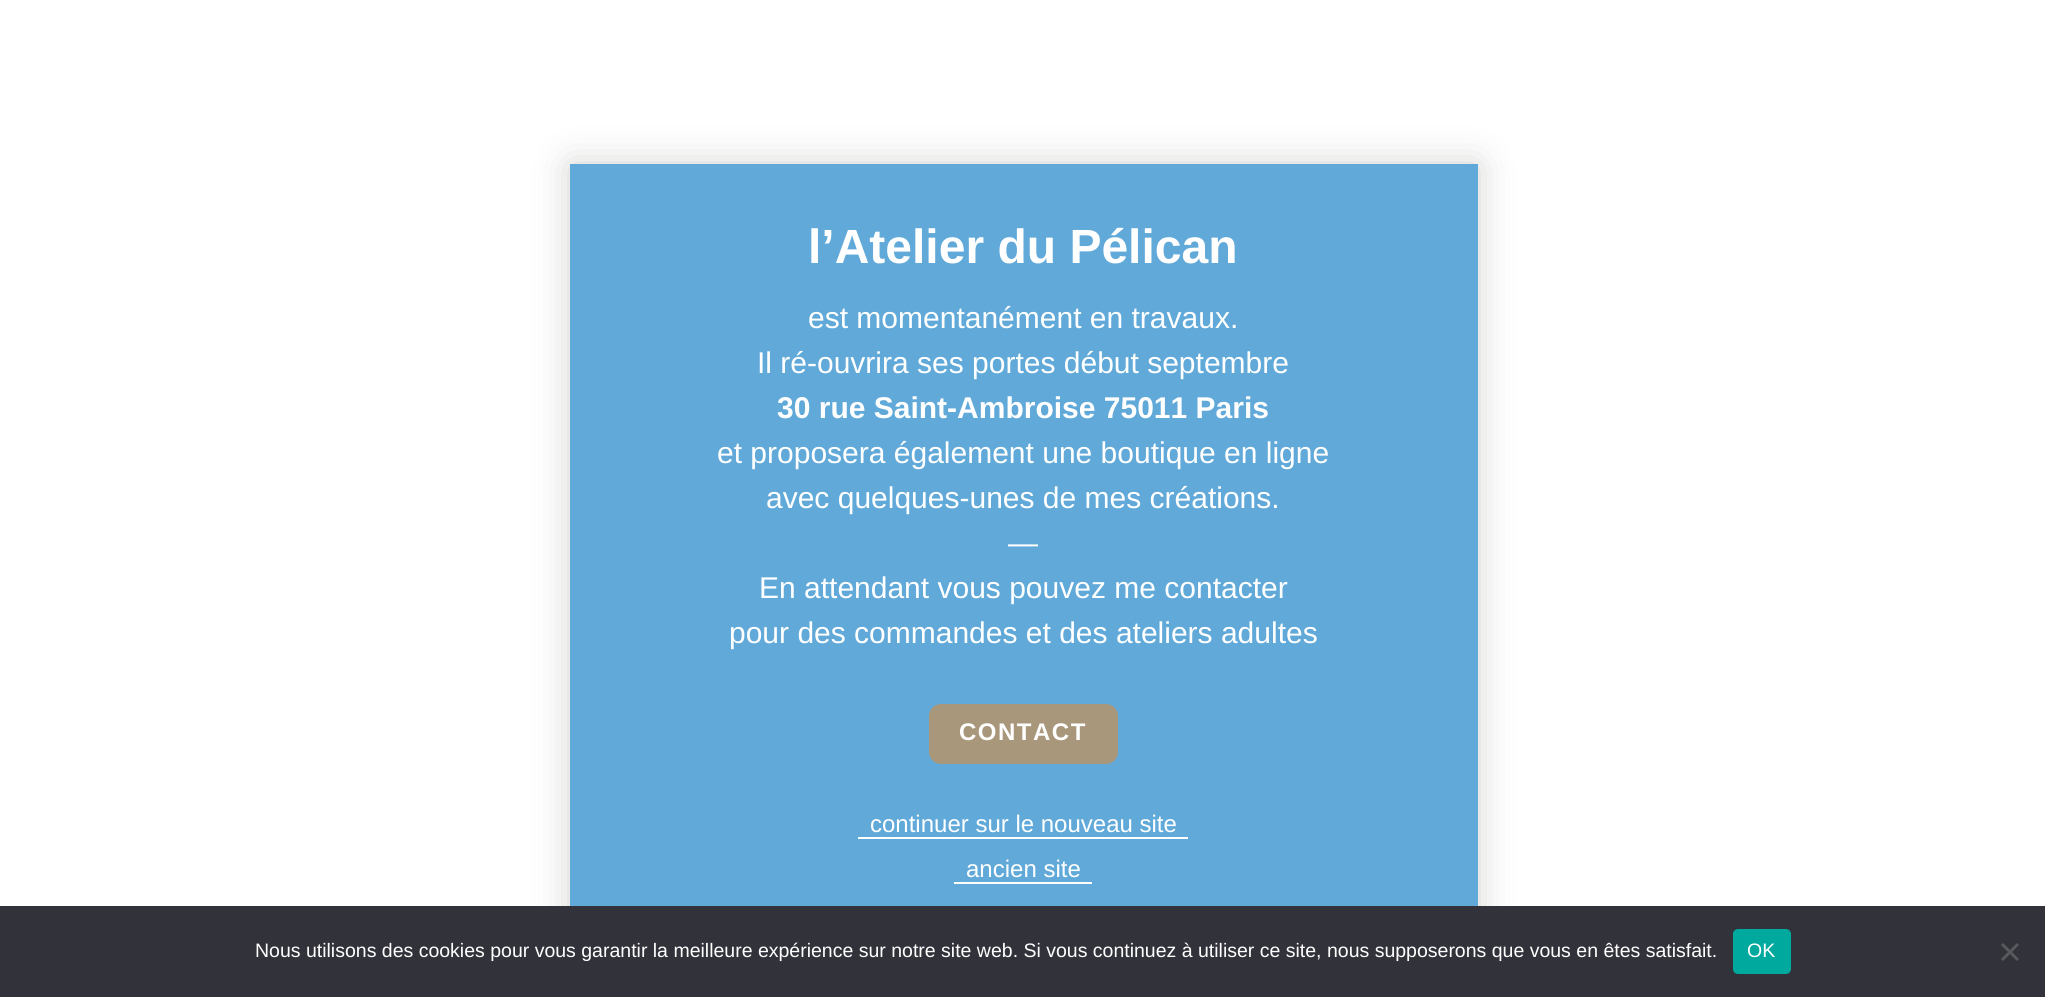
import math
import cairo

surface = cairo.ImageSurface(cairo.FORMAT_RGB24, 2045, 997)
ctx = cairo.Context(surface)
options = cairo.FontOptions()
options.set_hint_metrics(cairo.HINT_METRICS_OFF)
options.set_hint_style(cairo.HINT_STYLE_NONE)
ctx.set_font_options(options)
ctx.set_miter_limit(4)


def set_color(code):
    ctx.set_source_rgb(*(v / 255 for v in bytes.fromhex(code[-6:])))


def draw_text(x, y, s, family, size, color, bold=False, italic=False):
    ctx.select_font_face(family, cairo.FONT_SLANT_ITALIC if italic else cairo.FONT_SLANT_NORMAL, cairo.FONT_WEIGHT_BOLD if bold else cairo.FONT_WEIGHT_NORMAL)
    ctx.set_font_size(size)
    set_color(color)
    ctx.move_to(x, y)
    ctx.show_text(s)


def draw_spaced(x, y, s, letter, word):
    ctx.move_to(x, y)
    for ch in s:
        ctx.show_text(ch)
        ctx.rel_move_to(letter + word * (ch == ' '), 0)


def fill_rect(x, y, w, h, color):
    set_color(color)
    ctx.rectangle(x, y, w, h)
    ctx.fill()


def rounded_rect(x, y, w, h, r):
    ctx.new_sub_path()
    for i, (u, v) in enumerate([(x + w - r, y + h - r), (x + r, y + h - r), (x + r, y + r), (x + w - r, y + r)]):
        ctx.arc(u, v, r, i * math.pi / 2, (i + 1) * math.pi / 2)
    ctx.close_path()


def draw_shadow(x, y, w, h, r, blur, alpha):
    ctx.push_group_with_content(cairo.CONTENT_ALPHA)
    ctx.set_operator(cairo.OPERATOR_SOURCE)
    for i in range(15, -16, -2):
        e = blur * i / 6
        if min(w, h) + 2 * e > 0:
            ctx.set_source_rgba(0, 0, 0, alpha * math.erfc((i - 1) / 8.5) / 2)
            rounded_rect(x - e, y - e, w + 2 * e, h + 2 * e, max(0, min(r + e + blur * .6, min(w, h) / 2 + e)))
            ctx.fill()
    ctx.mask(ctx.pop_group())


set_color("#ffffff")
ctx.paint()
ctx.save()
ctx.set_fill_rule(cairo.FILL_RULE_EVEN_ODD)
ctx.new_path()
ctx.move_to(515, 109)
ctx.line_to(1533, 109)
ctx.line_to(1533, 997)
ctx.line_to(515, 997)
ctx.close_path()
ctx.move_to(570, 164)
ctx.line_to(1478, 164)
ctx.line_to(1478, 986)
ctx.line_to(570, 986)
ctx.close_path()
ctx.clip()
set_color("#211912")
draw_shadow(570, 164, 908, 822, 0, 18, 0.2)
ctx.restore()
ctx.set_source_rgba(0.169, 0.549, 0.8, 0.75)
ctx.rectangle(570, 164, 908, 742)
ctx.fill()
draw_text(808, 263, "l’Atelier du Pélican", "Liberation Sans", 48, "#ffffff", bold=True)
draw_text(808, 328, "est momentanément en travaux.", "Liberation Sans", 30, "#ffffff")
draw_text(757, 373, "Il ré-ouvrira ses portes début septembre", "Liberation Sans", 30, "#ffffff")
draw_text(777, 418, "30 rue Saint-Ambroise 75011 Paris", "Liberation Sans", 30, "#ffffff", bold=True)
draw_text(717, 463, "et proposera également une boutique en ligne", "Liberation Sans", 30, "#ffffff")
draw_text(766, 508, "avec quelques-unes de mes créations.", "Liberation Sans", 30, "#ffffff")
draw_text(1008, 553, "—", "Liberation Sans", 30, "#ffffff")
draw_text(759, 598, "En attendant vous pouvez me contacter", "Liberation Sans", 30, "#ffffff")
draw_text(729, 643, "pour des commandes et des ateliers adultes", "Liberation Sans", 30, "#ffffff")
set_color("#a8977b")
rounded_rect(929, 704, 189, 60, 12)
ctx.fill()
ctx.select_font_face("Liberation Sans", cairo.FONT_SLANT_NORMAL, cairo.FONT_WEIGHT_BOLD)
ctx.set_font_size(24)
set_color("#ffffff")
draw_spaced(959, 740, "CONTACT", 1.5, 0)
draw_text(870, 832, "continuer sur le nouveau site", "Liberation Sans", 24, "#ffffff")
fill_rect(858, 837, 330, 2, "#ffffff")
draw_text(966, 877, "ancien site", "Liberation Sans", 24, "#ffffff")
fill_rect(954, 882, 138, 2, "#ffffff")
fill_rect(0, 906, 2045, 91, "#32323a")
draw_text(255, 957, "Nous utilisons des cookies pour vous garantir la meilleure expérience sur notre site web. Si vous continuez à utiliser ce site, nous supposerons que vous en êtes satisfait.", "Liberation Sans", 19.5, "#ffffff")
set_color("#00a99d")
rounded_rect(1733, 929, 58, 45, 5)
ctx.fill()
draw_text(1747, 957, "OK", "Liberation Sans", 19.5, "#ffffff")
set_color("#59595d")
ctx.new_path()
ctx.move_to(2017, 943)
ctx.line_to(2019, 945)
ctx.line_to(2003, 961)
ctx.line_to(2001, 959)
ctx.close_path()
ctx.fill()
ctx.new_path()
ctx.move_to(2001, 945)
ctx.line_to(2003, 943)
ctx.line_to(2019, 959)
ctx.line_to(2017, 961)
ctx.close_path()
ctx.fill()
surface.write_to_png("output.png")
